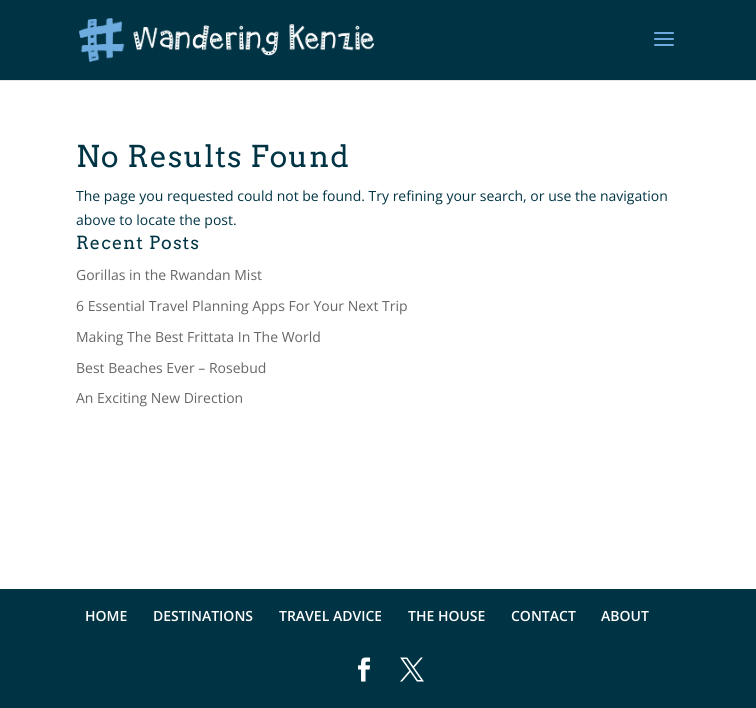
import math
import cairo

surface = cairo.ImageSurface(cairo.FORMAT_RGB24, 756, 708)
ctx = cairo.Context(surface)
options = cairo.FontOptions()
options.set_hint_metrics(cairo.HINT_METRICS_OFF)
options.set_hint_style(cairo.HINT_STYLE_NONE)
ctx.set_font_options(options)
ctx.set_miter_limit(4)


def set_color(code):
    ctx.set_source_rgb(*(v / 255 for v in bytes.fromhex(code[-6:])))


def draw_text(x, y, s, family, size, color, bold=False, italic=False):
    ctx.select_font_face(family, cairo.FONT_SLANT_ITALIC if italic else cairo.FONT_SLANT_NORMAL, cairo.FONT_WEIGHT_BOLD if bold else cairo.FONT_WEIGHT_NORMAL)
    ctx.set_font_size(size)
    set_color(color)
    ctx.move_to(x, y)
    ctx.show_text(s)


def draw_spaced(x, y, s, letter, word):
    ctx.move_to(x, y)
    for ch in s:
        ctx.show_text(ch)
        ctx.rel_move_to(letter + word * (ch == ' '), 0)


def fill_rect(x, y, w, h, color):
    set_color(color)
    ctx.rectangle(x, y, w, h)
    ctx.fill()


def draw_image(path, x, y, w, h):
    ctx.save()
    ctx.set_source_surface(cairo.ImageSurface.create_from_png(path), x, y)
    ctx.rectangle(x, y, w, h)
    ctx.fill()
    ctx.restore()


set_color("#ffffff")
ctx.paint()
fill_rect(0, 80, 756, 1, "#e6e6e6")
fill_rect(0, 0, 756, 80, "#003344")
draw_image("assets/img1.png", 79, 18, 295, 44)
draw_image("assets/img2.png", 654, 32, 20, 14)
ctx.select_font_face("Arvo")
ctx.set_font_size(30)
draw_spaced(76, 167, "No Results Found", 1, 0)
draw_text(76, 201, "The page you requested could not be found. Try refining your search, or use the navigation", "Open Sans", 14, "#003344")
draw_text(76, 225, "above to locate the post.", "Open Sans", 14, "#003344")
ctx.select_font_face("Arvo")
ctx.set_font_size(18)
draw_spaced(76, 249, "Recent Posts", 1, 0)
draw_text(76, 280, "Gorillas in the Rwandan Mist", "Open Sans", 14, "#666666")
draw_text(76, 311, "6 Essential Travel Planning Apps For Your Next Trip", "Open Sans", 14, "#666666")
draw_text(76, 342, "Making The Best Frittata In The World", "Open Sans", 14, "#666666")
draw_text(76, 373, "Best Beaches Ever – Rosebud", "Open Sans", 14, "#666666")
draw_text(76, 403, "An Exciting New Direction", "Open Sans", 14, "#666666")
fill_rect(0, 589, 756, 119, "#003344")
draw_text(85, 621, "HOME", "Open Sans SemiBold", 14, "#ffffff")
draw_text(153, 621, "DESTINATIONS", "Open Sans SemiBold", 14, "#ffffff")
draw_text(279, 621, "TRAVEL ADVICE", "Open Sans SemiBold", 14, "#ffffff")
draw_text(408, 621, "THE HOUSE", "Open Sans SemiBold", 14, "#ffffff")
draw_text(511, 621, "CONTACT", "Open Sans SemiBold", 14, "#ffffff")
draw_text(601, 621, "ABOUT", "Open Sans SemiBold", 14, "#ffffff")
draw_image("assets/img3.png", 358, 657, 13, 25)
draw_image("assets/img4.png", 400, 657, 24, 25)
surface.write_to_png("output.png")
